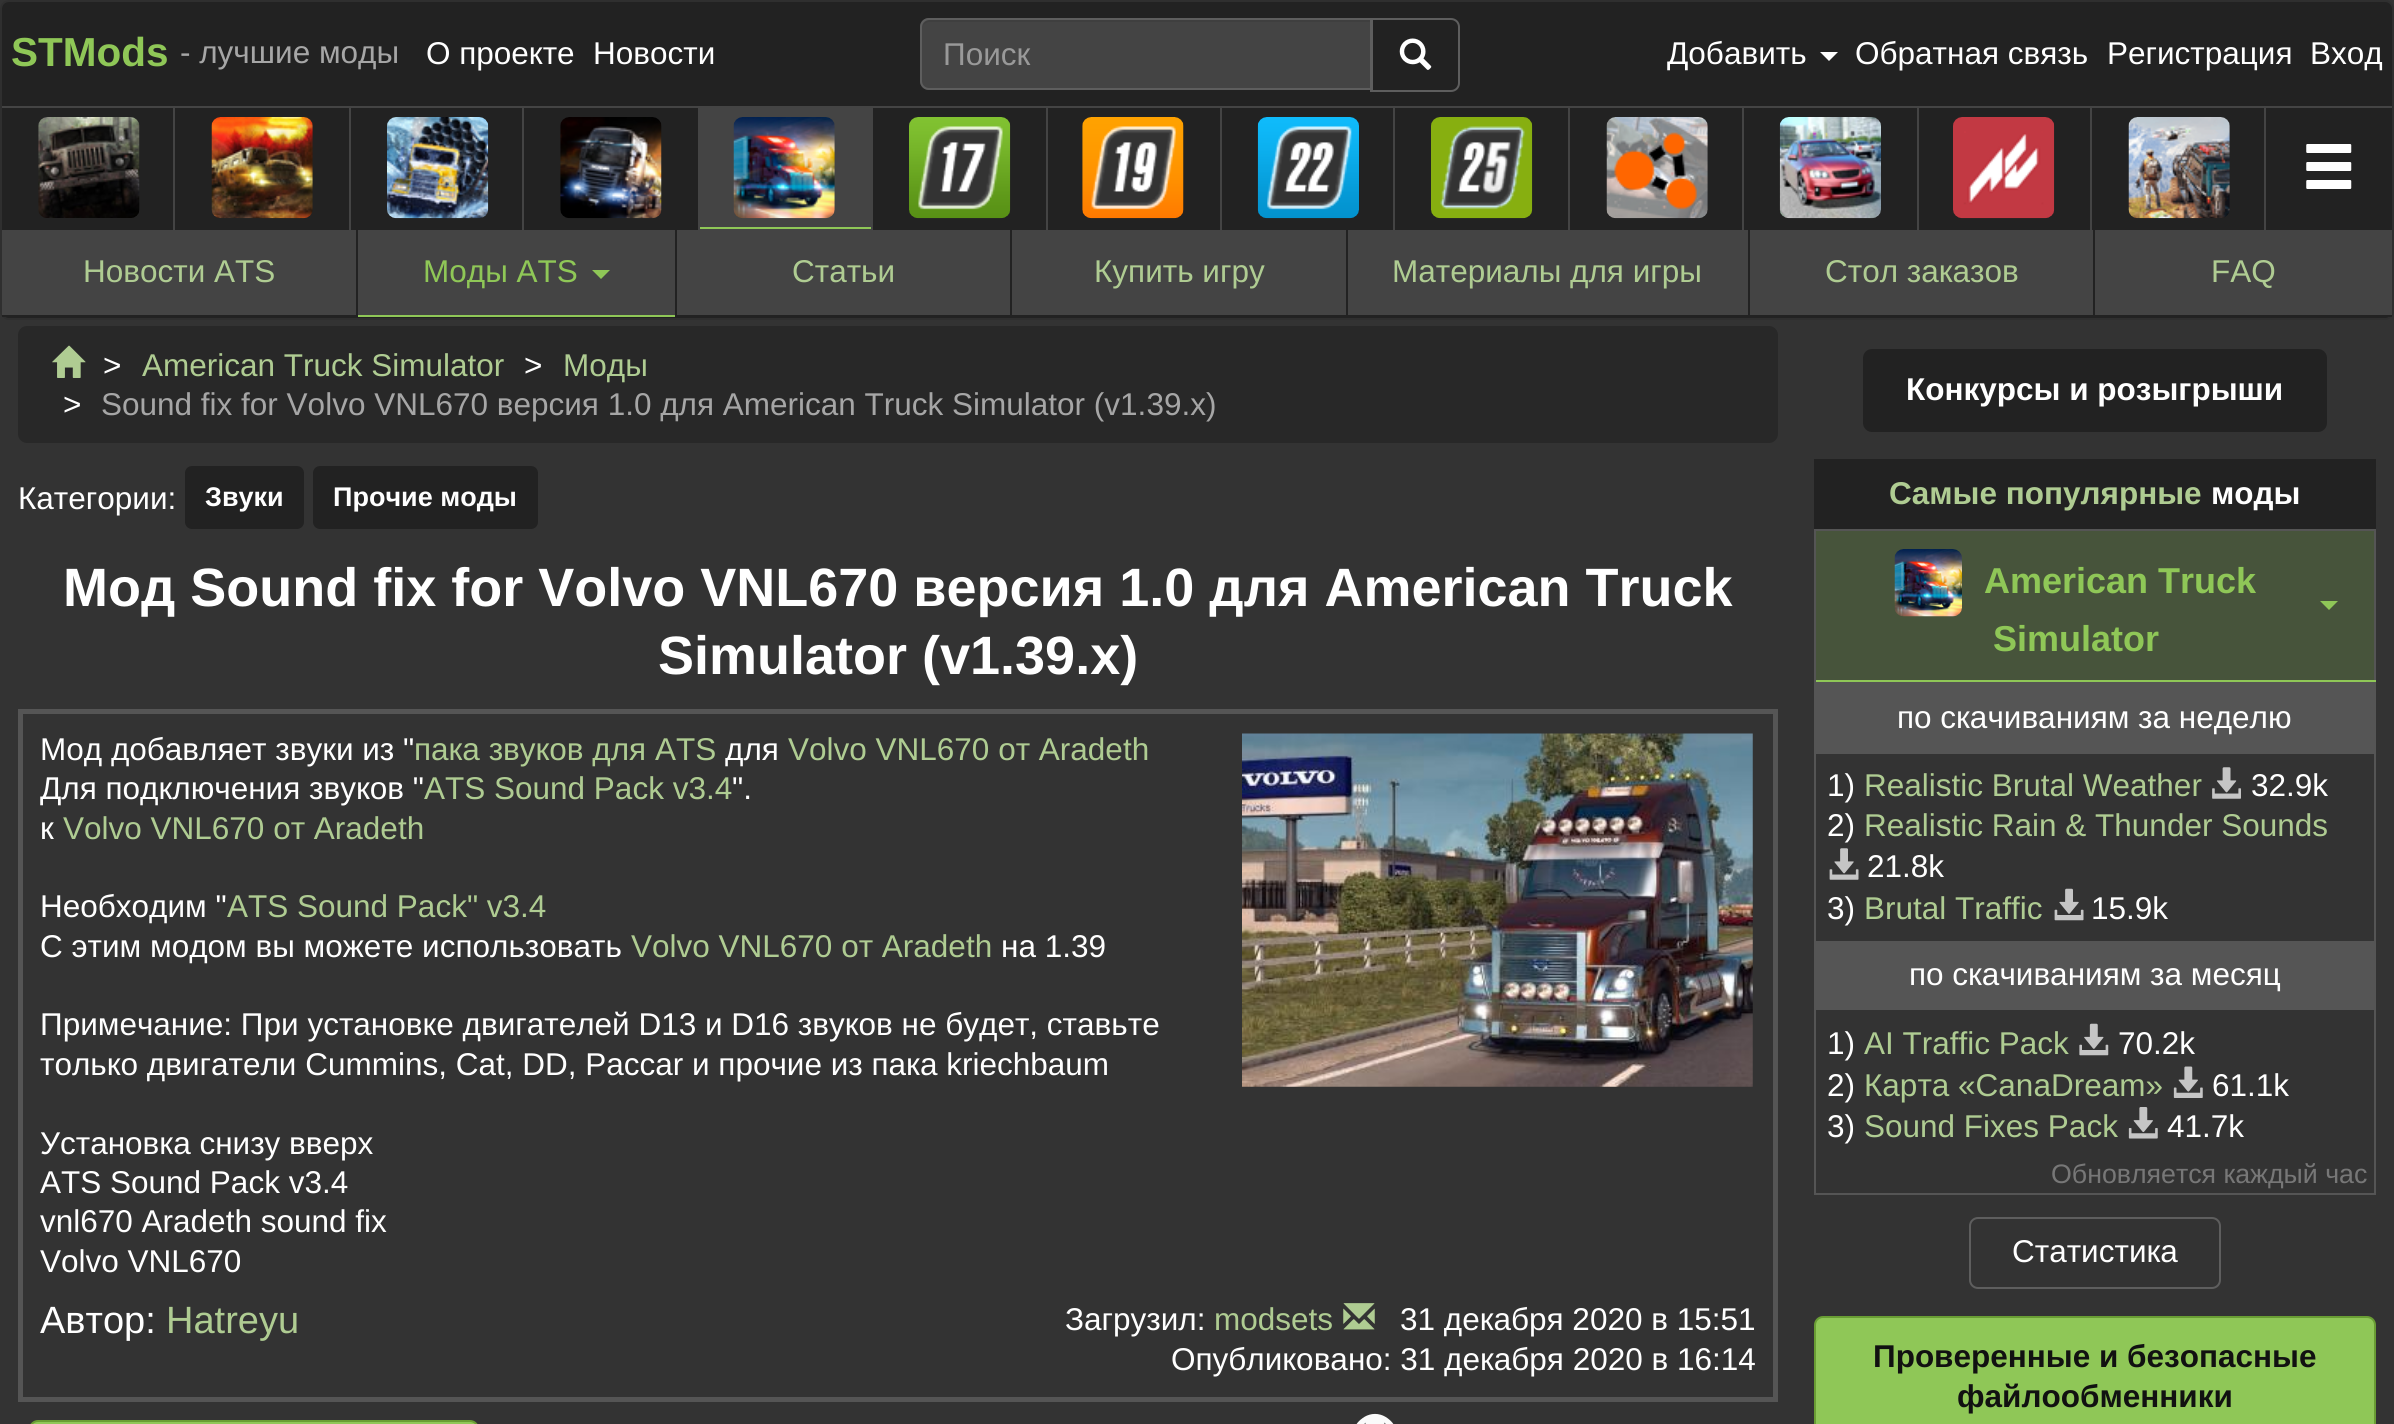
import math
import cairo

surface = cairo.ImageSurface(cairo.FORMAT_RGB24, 2394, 1424)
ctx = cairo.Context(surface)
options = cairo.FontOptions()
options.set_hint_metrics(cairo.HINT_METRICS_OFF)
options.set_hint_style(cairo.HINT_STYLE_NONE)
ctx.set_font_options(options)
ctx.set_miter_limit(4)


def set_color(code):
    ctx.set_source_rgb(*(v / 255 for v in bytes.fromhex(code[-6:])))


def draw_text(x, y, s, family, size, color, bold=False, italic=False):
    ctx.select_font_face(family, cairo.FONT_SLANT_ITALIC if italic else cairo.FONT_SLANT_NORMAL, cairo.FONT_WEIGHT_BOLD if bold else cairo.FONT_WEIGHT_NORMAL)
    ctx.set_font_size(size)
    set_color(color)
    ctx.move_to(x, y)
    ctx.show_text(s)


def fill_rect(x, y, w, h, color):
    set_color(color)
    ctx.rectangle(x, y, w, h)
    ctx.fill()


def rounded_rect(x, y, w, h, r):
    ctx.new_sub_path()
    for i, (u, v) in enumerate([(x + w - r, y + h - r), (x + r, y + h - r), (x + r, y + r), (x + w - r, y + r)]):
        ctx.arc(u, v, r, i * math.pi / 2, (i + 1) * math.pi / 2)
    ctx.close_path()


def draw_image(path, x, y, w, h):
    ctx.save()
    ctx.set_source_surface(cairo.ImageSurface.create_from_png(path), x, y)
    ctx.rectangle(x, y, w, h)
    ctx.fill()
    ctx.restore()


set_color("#333333")
ctx.paint()
set_color("#222222")
rounded_rect(1, 1, 2392, 318, 8)
ctx.fill_preserve()
set_color("#2f2f2f")
ctx.stroke()
draw_text(11, 66, "STMods", "Liberation Sans", 40.5, "#8fc757", bold=True)
draw_text(180, 63, "- лучшие моды", "Liberation Sans", 31.5, "#a6a6a6")
draw_text(426, 64, "О проекте", "Liberation Sans", 31.5, "#ffffff")
draw_text(593, 64, "Новости", "Liberation Sans", 31.5, "#ffffff")
set_color("#444444")
ctx.new_path()
ctx.move_to(929, 18)
ctx.line_to(1373, 18)
ctx.line_to(1373, 90)
ctx.line_to(929, 90)
ctx.curve_to(924, 90, 920, 86, 920, 81)
ctx.line_to(920, 27)
ctx.curve_to(920, 22, 924, 18, 929, 18)
ctx.close_path()
ctx.fill()
set_color("#3f3f3f")
ctx.new_path()
ctx.move_to(929, 22)
ctx.line_to(1370, 22)
ctx.line_to(1370, 20)
ctx.line_to(930, 20)
ctx.curve_to(926, 20, 924, 23, 923, 26)
ctx.curve_to(924, 24, 927, 22, 929, 22)
ctx.close_path()
ctx.fill()
ctx.new_path()
ctx.move_to(929, 19)
ctx.line_to(1372, 19)
ctx.line_to(1372, 89)
ctx.line_to(929, 89)
ctx.curve_to(924.5, 89, 921, 85.5, 921, 81)
ctx.line_to(921, 27)
ctx.curve_to(921, 22.5, 924.5, 19, 929, 19)
ctx.close_path()
set_color("#5e5e5e")
ctx.stroke()
draw_text(943, 65, "Поиск", "Liberation Sans", 31.5, "#999999")
ctx.new_path()
ctx.move_to(1371, 19)
ctx.line_to(1451, 19)
ctx.curve_to(1455.5, 19, 1459, 22.5, 1459, 27)
ctx.line_to(1459, 83)
ctx.curve_to(1459, 87.5, 1455.5, 91, 1451, 91)
ctx.line_to(1371, 91)
ctx.close_path()
set_color("#5e5e5e")
ctx.stroke()
draw_image("assets/img1.png", 1399, 38, 33, 32)
draw_text(1667, 64, "Добавить", "Liberation Sans", 31.5, "#ffffff")
ctx.new_path()
ctx.move_to(1820, 52)
ctx.line_to(1838, 52)
ctx.line_to(1829, 61)
ctx.close_path()
ctx.fill()
draw_text(1855, 64, "Обратная связь", "Liberation Sans", 31.5, "#ffffff")
draw_text(2107, 64, "Регистрация", "Liberation Sans", 31.5, "#ffffff")
draw_text(2310, 64, "Вход", "Liberation Sans", 31.5, "#ffffff")
fill_rect(2, 106, 2390, 2, "#444444")
draw_image("assets/img2.png", 38, 117, 102, 101)
fill_rect(173, 108, 2, 122, "#444444")
draw_image("assets/img3.png", 211, 117, 102, 102)
fill_rect(349, 108, 2, 122, "#444444")
draw_image("assets/img4.png", 387, 117, 102, 102)
fill_rect(522, 108, 2, 122, "#444444")
draw_image("assets/img5.png", 560, 117, 102, 102)
fill_rect(700, 108, 173, 122, "#444444")
fill_rect(698, 227, 173, 2, "#8fc757")
fill_rect(698, 108, 2, 122, "#444444")
draw_image("assets/img6.png", 733, 117, 102, 102)
draw_image("assets/img7.png", 909, 117, 102, 102)
fill_rect(1046, 108, 2, 122, "#444444")
draw_image("assets/img8.png", 1082, 117, 102, 102)
fill_rect(1220, 108, 2, 122, "#444444")
draw_image("assets/img9.png", 1257, 117, 102, 102)
fill_rect(1393, 108, 2, 122, "#444444")
draw_image("assets/img10.png", 1431, 117, 102, 102)
fill_rect(1568, 108, 2, 122, "#444444")
draw_image("assets/img11.png", 1606, 117, 102, 102)
fill_rect(1742, 108, 2, 122, "#444444")
draw_image("assets/img12.png", 1779, 117, 102, 102)
fill_rect(1917, 108, 2, 122, "#444444")
draw_image("assets/img13.png", 1953, 117, 102, 102)
fill_rect(2090, 108, 2, 122, "#444444")
draw_image("assets/img14.png", 2128, 117, 102, 102)
fill_rect(2264, 108, 2, 122, "#444444")
draw_image("assets/img15.png", 2306, 144, 46, 45)
fill_rect(2, 230, 354, 85, "#444444")
fill_rect(2, 315, 3, 2, "#222222")
draw_text(83, 282, "Новости ATS", "Liberation Sans", 31.5, "#afcc92")
fill_rect(358, 230, 317, 85, "#444444")
fill_rect(356, 315, 319, 2, "#8fc757")
fill_rect(356, 315, 2, 2, "#222222")
draw_text(423, 282, "Моды ATS", "Liberation Sans", 31.5, "#8fc757")
ctx.new_path()
ctx.move_to(592, 270)
ctx.line_to(610, 270)
ctx.line_to(601, 279)
ctx.close_path()
ctx.fill()
fill_rect(677, 230, 333, 85, "#444444")
draw_text(792, 282, "Статьи", "Liberation Sans", 31.5, "#afcc92")
fill_rect(1012, 230, 334, 85, "#444444")
draw_text(1094, 282, "Купить игру", "Liberation Sans", 31.5, "#afcc92")
fill_rect(1348, 230, 400, 85, "#444444")
draw_text(1392, 282, "Материалы для игры", "Liberation Sans", 31.5, "#afcc92")
fill_rect(1750, 230, 343, 85, "#444444")
draw_text(1825, 282, "Стол заказов", "Liberation Sans", 31.5, "#afcc92")
fill_rect(2095, 230, 297, 85, "#444444")
fill_rect(2389, 315, 3, 2, "#222222")
draw_text(2211, 282, "FAQ", "Liberation Sans", 31.5, "#afcc92")
set_color("#282828")
rounded_rect(18, 326, 1760, 117, 9)
ctx.fill()
draw_image("assets/img16.png", 52, 345, 34, 33)
draw_text(103, 376, ">", "Liberation Sans", 31.5, "#ffffff")
draw_text(142, 376, "American Truck Simulator", "Liberation Sans", 31.5, "#afcc92")
draw_text(524, 376, ">", "Liberation Sans", 31.5, "#ffffff")
draw_text(563, 376, "Моды", "Liberation Sans", 31.5, "#afcc92")
draw_text(63, 415, ">", "Liberation Sans", 31.5, "#ffffff")
draw_text(101, 415, "Sound fix for Volvo VNL670 версия 1.0 для American Truck Simulator (v1.39.x)", "Liberation Sans", 31.5, "#a6a6a6")
draw_text(18, 509, "Категории:", "Liberation Sans", 31.5, "#ffffff")
set_color("#222222")
rounded_rect(186, 467, 117, 61, 6)
ctx.fill_preserve()
ctx.stroke()
draw_text(205, 506, "Звуки", "Liberation Sans", 27, "#ffffff", bold=True)
set_color("#222222")
rounded_rect(314, 467, 223, 61, 6)
ctx.fill_preserve()
ctx.stroke()
draw_text(333, 506, "Прочие моды", "Liberation Sans", 27, "#ffffff", bold=True)
draw_text(63, 606, "Мод Sound fix for Volvo VNL670 версия 1.0 для American Truck", "Liberation Sans", 54, "#ffffff", bold=True)
draw_text(658, 674, "Simulator (v1.39.x)", "Liberation Sans", 54, "#ffffff", bold=True)
ctx.rectangle(20.5, 711.5, 1755, 688)
set_color("#555555")
ctx.set_line_width(5)
ctx.stroke()
draw_text(40, 760, "Мод добавляет звуки из \"", "Liberation Sans", 31.5, "#ffffff")
draw_text(414, 760, "пака звуков для ATS", "Liberation Sans", 31.5, "#afcc92")
draw_text(725, 760, "для", "Liberation Sans", 31.5, "#ffffff")
draw_text(788, 760, "Volvo VNL670 от Aradeth", "Liberation Sans", 31.5, "#afcc92")
draw_text(40, 799, "Для подключения звуков \"", "Liberation Sans", 31.5, "#ffffff")
draw_text(424, 799, "ATS Sound Pack v3.4", "Liberation Sans", 31.5, "#afcc92")
draw_text(732, 799, "\".", "Liberation Sans", 31.5, "#ffffff")
draw_text(40, 839, "к", "Liberation Sans", 31.5, "#ffffff")
draw_text(63, 839, "Volvo VNL670 от Aradeth", "Liberation Sans", 31.5, "#afcc92")
draw_text(40, 917, "Необходим \"", "Liberation Sans", 31.5, "#ffffff")
draw_text(227, 917, "ATS Sound Pack\" v3.4", "Liberation Sans", 31.5, "#afcc92")
draw_text(40, 957, "С этим модом вы можете использовать", "Liberation Sans", 31.5, "#ffffff")
draw_text(631, 957, "Volvo VNL670 от Aradeth", "Liberation Sans", 31.5, "#afcc92")
draw_text(1001, 957, "на 1.39", "Liberation Sans", 31.5, "#ffffff")
draw_text(40, 1035, "Примечание: При установке двигателей D13 и D16 звуков не будет, ставьте", "Liberation Sans", 31.5, "#ffffff")
draw_text(40, 1075, "только двигатели Cummins, Cat, DD, Paccar и прочие из пака kriechbaum", "Liberation Sans", 31.5, "#ffffff")
draw_text(40, 1154, "Установка снизу вверх", "Liberation Sans", 31.5, "#ffffff")
draw_text(40, 1193, "ATS Sound Pack v3.4", "Liberation Sans", 31.5, "#ffffff")
draw_text(40, 1232, "vnl670 Aradeth sound fix", "Liberation Sans", 31.5, "#ffffff")
draw_text(40, 1272, "Volvo VNL670", "Liberation Sans", 31.5, "#ffffff")
draw_image("assets/img17.png", 1242, 733, 511, 354)
draw_text(40, 1333, "Автор:", "Liberation Sans", 38, "#ffffff")
draw_text(166, 1333, "Hatreyu", "Liberation Sans", 38, "#afcc92")
draw_text(1065, 1330, "Загрузил:", "Liberation Sans", 31.5, "#ffffff")
draw_text(1214, 1330, "modsets", "Liberation Sans", 31.5, "#afcc92")
draw_image("assets/img18.png", 1343, 1303, 32, 27)
draw_text(1400, 1330, "31 декабря 2020 в 15:51", "Liberation Sans", 31.5, "#ffffff")
draw_text(1171, 1370, "Опубликовано: 31 декабря 2020 в 16:14", "Liberation Sans", 31.5, "#ffffff")
draw_image("assets/img19.png", 1356, 1413, 38, 11)
set_color("#8fc757")
rounded_rect(30, 1421, 448, 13, 8)
ctx.fill_preserve()
set_color("#699d34")
ctx.set_line_width(2)
ctx.stroke()
set_color("#222222")
rounded_rect(1864, 350, 462, 81, 8)
ctx.fill_preserve()
ctx.stroke()
draw_text(1906, 400, "Конкурсы и розыгрыши", "Liberation Sans", 31.5, "#ffffff", bold=True)
fill_rect(1814, 459, 562, 70, "#222222")
draw_text(1889, 504, "Самые популярные", "Liberation Sans", 31.5, "#afcc92", bold=True)
draw_text(2211, 504, "моды", "Liberation Sans", 31.5, "#ffffff", bold=True)
fill_rect(1816, 531, 558, 149, "#47543b")
fill_rect(1814, 529, 562, 2, "#555555")
fill_rect(2374, 529, 2, 153, "#555555")
fill_rect(1814, 680, 562, 2, "#8fc757")
fill_rect(1814, 529, 2, 153, "#555555")
draw_image("assets/img20.png", 1894, 549, 68, 68)
draw_text(1984, 593, "American Truck", "Liberation Sans", 36, "#8fc757", bold=True)
draw_text(1993, 651, "Simulator", "Liberation Sans", 36, "#8fc757", bold=True)
ctx.new_path()
ctx.move_to(2320, 601)
ctx.line_to(2338, 601)
ctx.line_to(2329, 610)
ctx.close_path()
ctx.fill()
fill_rect(2374, 682, 2, 513, "#555555")
fill_rect(1814, 1193, 562, 2, "#555555")
fill_rect(1814, 682, 2, 513, "#555555")
fill_rect(1816, 682, 558, 72, "#555555")
draw_text(1897, 728, "по скачиваниям за неделю", "Liberation Sans", 31.5, "#ffffff")
draw_text(1827, 796, "1)", "Liberation Sans", 31.5, "#ffffff")
draw_text(1864, 796, "Realistic Brutal Weather", "Liberation Sans", 31.5, "#afcc92")
draw_image("assets/img21.png", 2212, 767, 29, 32)
draw_text(2251, 796, "32.9k", "Liberation Sans", 31.5, "#ffffff")
draw_text(1827, 836, "2)", "Liberation Sans", 31.5, "#ffffff")
draw_text(1864, 836, "Realistic Rain & Thunder Sounds", "Liberation Sans", 31.5, "#afcc92")
draw_image("assets/img22.png", 1829, 848, 30, 32)
draw_text(1867, 877, "21.8k", "Liberation Sans", 31.5, "#ffffff")
draw_text(1827, 919, "3)", "Liberation Sans", 31.5, "#ffffff")
draw_text(1864, 919, "Brutal Traffic", "Liberation Sans", 31.5, "#afcc92")
draw_image("assets/img23.png", 2054, 888, 30, 33)
draw_text(2091, 919, "15.9k", "Liberation Sans", 31.5, "#ffffff")
fill_rect(1816, 941, 558, 69, "#555555")
draw_text(1909, 985, "по скачиваниям за месяц", "Liberation Sans", 31.5, "#ffffff")
draw_text(1827, 1054, "1)", "Liberation Sans", 31.5, "#ffffff")
draw_text(1864, 1054, "AI Traffic Pack", "Liberation Sans", 31.5, "#afcc92")
draw_image("assets/img24.png", 2079, 1023, 30, 33)
draw_text(2118, 1054, "70.2k", "Liberation Sans", 31.5, "#ffffff")
draw_text(1827, 1096, "2)", "Liberation Sans", 31.5, "#ffffff")
draw_text(1864, 1096, "Карта «CanaDream»", "Liberation Sans", 31.5, "#afcc92")
draw_image("assets/img25.png", 2173, 1066, 30, 32)
draw_text(2212, 1096, "61.1k", "Liberation Sans", 31.5, "#ffffff")
draw_text(1827, 1137, "3)", "Liberation Sans", 31.5, "#ffffff")
draw_text(1864, 1137, "Sound Fixes Pack", "Liberation Sans", 31.5, "#afcc92")
draw_image("assets/img26.png", 2128, 1107, 30, 32)
draw_text(2167, 1137, "41.7k", "Liberation Sans", 31.5, "#ffffff")
draw_text(2051, 1183, "Обновляется каждый час", "Liberation Sans", 26.75, "#777777")
rounded_rect(1970, 1218, 250, 70, 8)
set_color("#5e5e5e")
ctx.stroke()
draw_text(2012, 1262, "Статистика", "Liberation Sans", 31.5, "#ffffff")
set_color("#8fc757")
rounded_rect(1815, 1317, 560, 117, 8)
ctx.fill_preserve()
set_color("#699d34")
ctx.stroke()
draw_text(1873, 1367, "Проверенные и безопасные", "Liberation Sans", 31.5, "#111111", bold=True)
draw_text(1957, 1407, "файлообменники", "Liberation Sans", 31.5, "#111111", bold=True)
surface.write_to_png("output.png")
